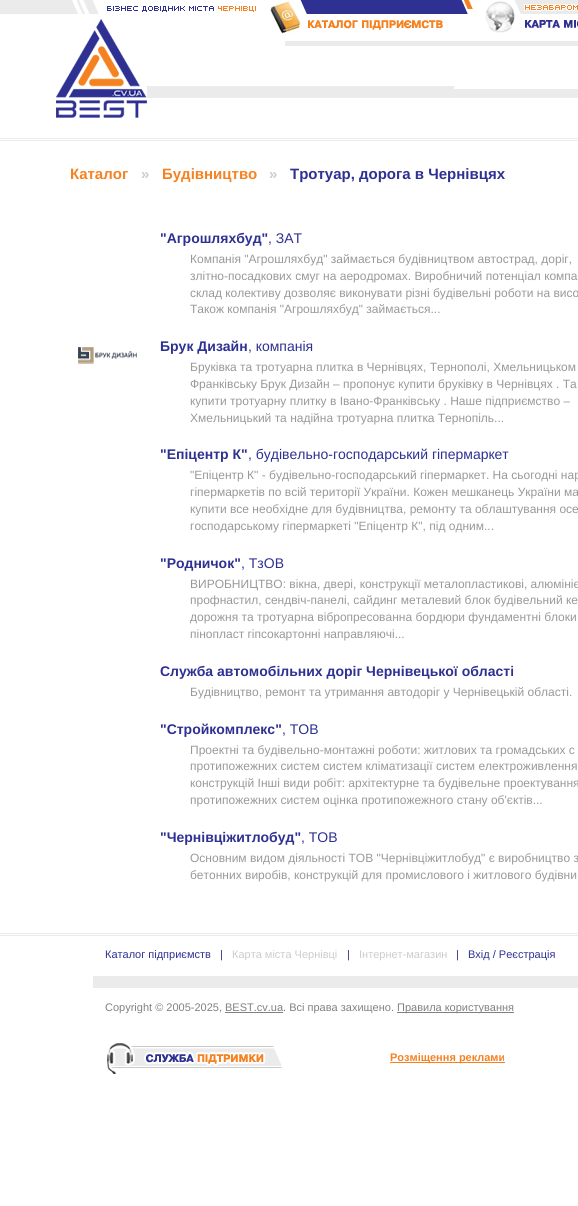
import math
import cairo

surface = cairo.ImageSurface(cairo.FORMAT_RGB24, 578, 1206)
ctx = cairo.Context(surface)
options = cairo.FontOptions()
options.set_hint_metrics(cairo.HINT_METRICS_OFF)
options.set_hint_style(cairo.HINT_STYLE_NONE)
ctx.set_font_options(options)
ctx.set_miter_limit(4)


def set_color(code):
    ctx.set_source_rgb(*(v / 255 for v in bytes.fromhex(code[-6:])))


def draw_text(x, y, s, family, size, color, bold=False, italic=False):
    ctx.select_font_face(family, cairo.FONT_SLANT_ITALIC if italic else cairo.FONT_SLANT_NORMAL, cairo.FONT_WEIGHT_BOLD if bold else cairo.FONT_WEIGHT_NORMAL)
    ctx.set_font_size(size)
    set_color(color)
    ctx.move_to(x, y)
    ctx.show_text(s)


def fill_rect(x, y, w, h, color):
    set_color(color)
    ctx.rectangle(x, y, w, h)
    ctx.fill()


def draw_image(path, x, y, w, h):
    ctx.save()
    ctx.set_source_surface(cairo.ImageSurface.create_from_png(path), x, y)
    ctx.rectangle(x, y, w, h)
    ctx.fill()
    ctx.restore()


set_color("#ffffff")
ctx.paint()
fill_rect(0, 138, 578, 1, "#ebebeb")
fill_rect(147, 86, 431, 12, "#ebebeb")
draw_image("assets/img1.png", 0, 0, 256, 14)
draw_image("assets/img2.png", 56, 19, 91, 99)
draw_image("assets/img3.png", 270, 0, 203, 34)
draw_image("assets/img4.png", 485, 0, 93, 33)
fill_rect(285, 41, 293, 5, "#ebebeb")
fill_rect(454, 86, 124, 3, "#ffffff")
fill_rect(0, 140, 578, 1, "#ebebeb")
fill_rect(0, 933, 578, 1, "#ebebeb")
draw_text(70, 179, "Каталог", "Liberation Sans", 15, "#f58220", bold=True)
draw_text(141, 179, "»", "Liberation Sans", 15, "#cccccc", bold=True)
draw_text(162, 179, "Будівництво", "Liberation Sans", 15, "#f58220", bold=True)
draw_text(269, 179, "»", "Liberation Sans", 15, "#cccccc", bold=True)
draw_text(290, 179, "Тротуар, дорога в Чернівцях", "Liberation Sans", 15, "#2e3192", bold=True)
draw_text(160, 243, "\"Агрошляхбуд\"", "Liberation Sans", 14, "#2e3192", bold=True)
draw_text(268, 243, ", ЗАТ", "Liberation Sans", 14, "#2e3192")
draw_text(190, 263, "Компанія \"Агрошляхбуд\" займається будівництвом автострад, доріг,", "Liberation Sans", 12, "#999999")
draw_text(190, 280, "злітно-посадкових смуг на аеродромах. Виробничий потенціал компа", "Liberation Sans", 12, "#999999")
draw_text(190, 297, "склад колективу дозволяє виконувати різні будівельні роботи на висо", "Liberation Sans", 12, "#999999")
draw_text(190, 313, "Також компанія \"Агрошляхбуд\" займається...", "Liberation Sans", 12, "#999999")
draw_image("assets/img5.png", 78, 347, 59, 17)
draw_text(160, 351, "Брук Дизайн", "Liberation Sans", 14, "#2e3192", bold=True)
draw_text(248, 351, ", компанія", "Liberation Sans", 14, "#2e3192")
draw_text(190, 371, "Бруківка та тротуарна плитка в Чернівцях, Тернополі, Хмельницьком", "Liberation Sans", 12, "#999999")
draw_text(190, 388, "Франківську Брук Дизайн – пропонує купити бруківку в Чернівцях . Та", "Liberation Sans", 12, "#999999")
draw_text(190, 405, "купити тротуарну плитку в Івано-Франківську . Наше підприємство –", "Liberation Sans", 12, "#999999")
draw_text(190, 422, "Хмельницький та надійна тротуарна плитка Тернопіль...", "Liberation Sans", 12, "#999999")
draw_text(160, 459, "\"Епіцентр К\"", "Liberation Sans", 14, "#2e3192", bold=True)
draw_text(248, 459, ", будівельно-господарський гіпермаркет", "Liberation Sans", 14, "#2e3192")
draw_text(190, 479, "\"Епіцентр К\" - будівельно-господарський гіпермаркет. На сьогодні нар", "Liberation Sans", 12, "#999999")
draw_text(190, 496, "гіпермаркетів по всій території України. Кожен мешканець України ма", "Liberation Sans", 12, "#999999")
draw_text(190, 513, "купити все необхідне для будівництва, ремонту та облаштування осе", "Liberation Sans", 12, "#999999")
draw_text(190, 530, "господарському гіпермаркеті \"Епіцентр К\", під одним...", "Liberation Sans", 12, "#999999")
draw_text(160, 568, "\"Родничок\"", "Liberation Sans", 14, "#2e3192", bold=True)
draw_text(241, 568, ", ТзОВ", "Liberation Sans", 14, "#2e3192")
draw_text(190, 588, "ВИРОБНИЦТВО: вікна, двері, конструкції металопластикові, алюмініє", "Liberation Sans", 12, "#999999")
draw_text(190, 604, "профнастил, сендвіч-панелі, сайдинг металевий блок будівельний ке", "Liberation Sans", 12, "#999999")
draw_text(190, 621, "дорожня та тротуарна вібропресованна бордюри фундаментні блоки", "Liberation Sans", 12, "#999999")
draw_text(190, 638, "пінопласт гіпсокартонні направляючі...", "Liberation Sans", 12, "#999999")
draw_text(160, 676, "Служба автомобільних доріг Чернівецької області", "Liberation Sans", 14, "#2e3192", bold=True)
draw_text(190, 696, "Будівництво, ремонт та утримання автодоріг у Чернівецькій області.", "Liberation Sans", 12, "#999999")
draw_text(160, 734, "\"Стройкомплекс\"", "Liberation Sans", 14, "#2e3192", bold=True)
draw_text(282, 734, ", ТОВ", "Liberation Sans", 14, "#2e3192")
draw_text(190, 754, "Проектні та будівельно-монтажні роботи: житлових та громадських с", "Liberation Sans", 12, "#999999")
draw_text(190, 770, "протипожежних систем систем кліматизації систем електроживлення", "Liberation Sans", 12, "#999999")
draw_text(190, 787, "конструкцій Інші види робіт: архітектурне та будівельне проектування", "Liberation Sans", 12, "#999999")
draw_text(190, 804, "протипожежних систем оцінка протипожежного стану об'єктів...", "Liberation Sans", 12, "#999999")
draw_text(160, 842, "\"Чернівціжитлобуд\"", "Liberation Sans", 14, "#2e3192", bold=True)
draw_text(301, 842, ", ТОВ", "Liberation Sans", 14, "#2e3192")
draw_text(190, 862, "Основним видом діяльності ТОВ \"Чернівціжитлобуд\" є виробництво з", "Liberation Sans", 12, "#999999")
draw_text(190, 879, "бетонних виробів, конструкцій для промислового і житлового будівни", "Liberation Sans", 12, "#999999")
fill_rect(93, 976, 485, 12, "#ebebeb")
fill_rect(0, 935, 578, 1, "#ebebeb")
draw_text(105, 958, "Каталог підприємств", "Liberation Sans", 11, "#2e3192")
draw_text(220, 958, "|", "Liberation Sans", 11, "#2e3192")
draw_text(232, 958, "Карта міста Чернівці", "Liberation Sans", 11, "#cccccc")
draw_text(347, 958, "|", "Liberation Sans", 11, "#2e3192")
draw_text(359, 958, "Інтернет-магазин", "Liberation Sans", 11, "#cccccc")
draw_text(456, 958, "|", "Liberation Sans", 11, "#2e3192")
draw_text(468, 958, "Вхід / Реєстрація", "Liberation Sans", 11, "#2e3192")
draw_text(105, 1011, "Copyright © 2005-2025, BEST.cv.ua. Всі права захищено.", "Liberation Sans", 11, "#818181")
fill_rect(397, 1012, 117, 1, "#818181")
draw_text(397, 1011, "Правила користування", "Liberation Sans", 11, "#818181")
fill_rect(225, 1012, 58, 1, "#818181")
draw_image("assets/img6.png", 107, 1043, 175, 31)
fill_rect(390, 1062, 115, 1, "#f58220")
draw_text(390, 1061, "Розміщення реклами", "Liberation Sans", 11, "#f58220", bold=True)
surface.write_to_png("output.png")
